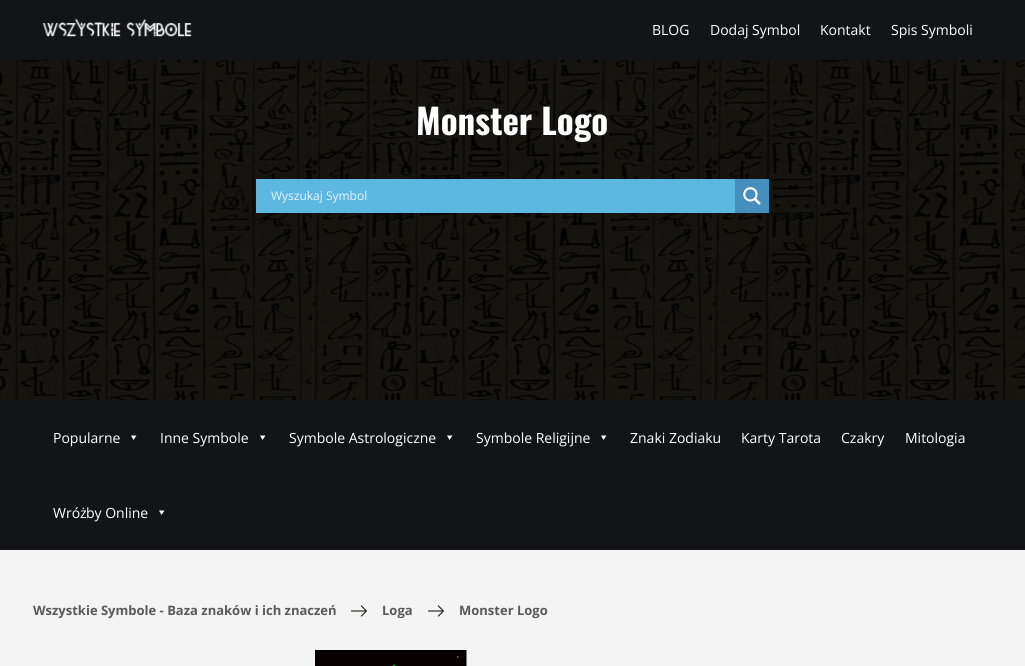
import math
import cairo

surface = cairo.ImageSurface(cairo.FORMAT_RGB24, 1025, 666)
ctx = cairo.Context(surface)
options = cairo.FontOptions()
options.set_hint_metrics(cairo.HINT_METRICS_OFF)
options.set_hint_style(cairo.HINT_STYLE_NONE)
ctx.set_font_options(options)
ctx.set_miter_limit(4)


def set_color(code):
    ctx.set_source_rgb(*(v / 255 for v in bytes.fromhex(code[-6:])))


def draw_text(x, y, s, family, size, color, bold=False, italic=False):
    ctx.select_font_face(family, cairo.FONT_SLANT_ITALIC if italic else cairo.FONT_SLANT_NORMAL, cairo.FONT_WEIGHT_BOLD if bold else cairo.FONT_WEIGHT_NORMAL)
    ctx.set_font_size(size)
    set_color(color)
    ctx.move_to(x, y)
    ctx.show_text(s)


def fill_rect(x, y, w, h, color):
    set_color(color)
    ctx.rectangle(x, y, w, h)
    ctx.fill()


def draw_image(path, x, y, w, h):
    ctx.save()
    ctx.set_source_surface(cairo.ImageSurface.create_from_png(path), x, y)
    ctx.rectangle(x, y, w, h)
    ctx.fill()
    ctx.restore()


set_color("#ffffff")
ctx.paint()
fill_rect(0, 0, 1025, 60, "#131418")
draw_image("assets/img1.png", 42, 18, 150, 19)
draw_text(652, 35, "BLOG", "Open Sans", 14, "#ffffff")
draw_text(710, 35, "Dodaj Symbol", "Open Sans", 14, "#ffffff")
draw_text(820, 35, "Kontakt", "Open Sans", 14, "#ffffff")
draw_text(891, 35, "Spis Symboli", "Open Sans", 14, "#ffffff")
draw_image("assets/img2.png", 0, 60, 1025, 340)
draw_text(416, 135, "Monster Logo", "Oswald", 35, "#ffffff", bold=True)
fill_rect(256, 179, 479, 34, "#5cb7e1")
draw_text(271, 200, "Wyszukaj Symbol", "Open Sans", 12, "#e7f4fb")
fill_rect(735, 179, 34, 34, "#468ebe")
draw_image("assets/img3.png", 743, 187, 18, 18)
fill_rect(0, 400, 1025, 150, "#131418")
draw_text(53, 443, "Popularne", "Open Sans", 14, "#ffffff")
ctx.new_path()
ctx.move_to(136.5, 435.5)
ctx.line_to(133.5, 440)
ctx.line_to(131, 435.5)
ctx.close_path()
ctx.fill()
draw_text(160, 443, "Inne Symbole", "Open Sans", 14, "#ffffff")
ctx.new_path()
ctx.move_to(265.5, 435.5)
ctx.line_to(262.5, 440)
ctx.line_to(260, 435.5)
ctx.close_path()
ctx.fill()
draw_text(289, 443, "Symbole Astrologiczne", "Open Sans", 14, "#ffffff")
ctx.new_path()
ctx.move_to(452.5, 435.5)
ctx.line_to(449.5, 440)
ctx.line_to(447, 435.5)
ctx.close_path()
ctx.fill()
draw_text(476, 443, "Symbole Religijne", "Open Sans", 14, "#ffffff")
ctx.new_path()
ctx.move_to(606.5, 435.5)
ctx.line_to(603.5, 440)
ctx.line_to(601, 435.5)
ctx.close_path()
ctx.fill()
draw_text(630, 443, "Znaki Zodiaku", "Open Sans", 14, "#ffffff")
draw_text(741, 443, "Karty Tarota", "Open Sans", 14, "#ffffff")
draw_text(841, 443, "Czakry", "Open Sans", 14, "#ffffff")
draw_text(905, 443, "Mitologia", "Open Sans", 14, "#ffffff")
draw_text(53, 518, "Wró", "Open Sans", 14, "#ffffff")
draw_text(80, 518, "ż", "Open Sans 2", 14, "#ffffff")
draw_text(86, 518, "by Online", "Open Sans", 14, "#ffffff")
ctx.new_path()
ctx.move_to(164.5, 510.5)
ctx.line_to(161.5, 515)
ctx.line_to(159, 510.5)
ctx.close_path()
ctx.fill()
fill_rect(0, 550, 1025, 116, "#f4f4f4")
draw_text(33, 615, "Wszystkie Symbole - Baza znaków i ich znaczeń", "Open Sans", 13, "#5a5a5a", bold=True)
draw_image("assets/img4.png", 351, 605, 16, 12)
draw_text(382, 615, "Loga", "Open Sans", 13, "#5a5a5a", bold=True)
draw_image("assets/img4.png", 428, 605, 16, 12)
draw_text(459, 615, "Monster Logo", "Open Sans", 13, "#5a5a5a", bold=True)
draw_image("assets/img5.png", 315, 650, 152, 16)
surface.write_to_png("output.png")
